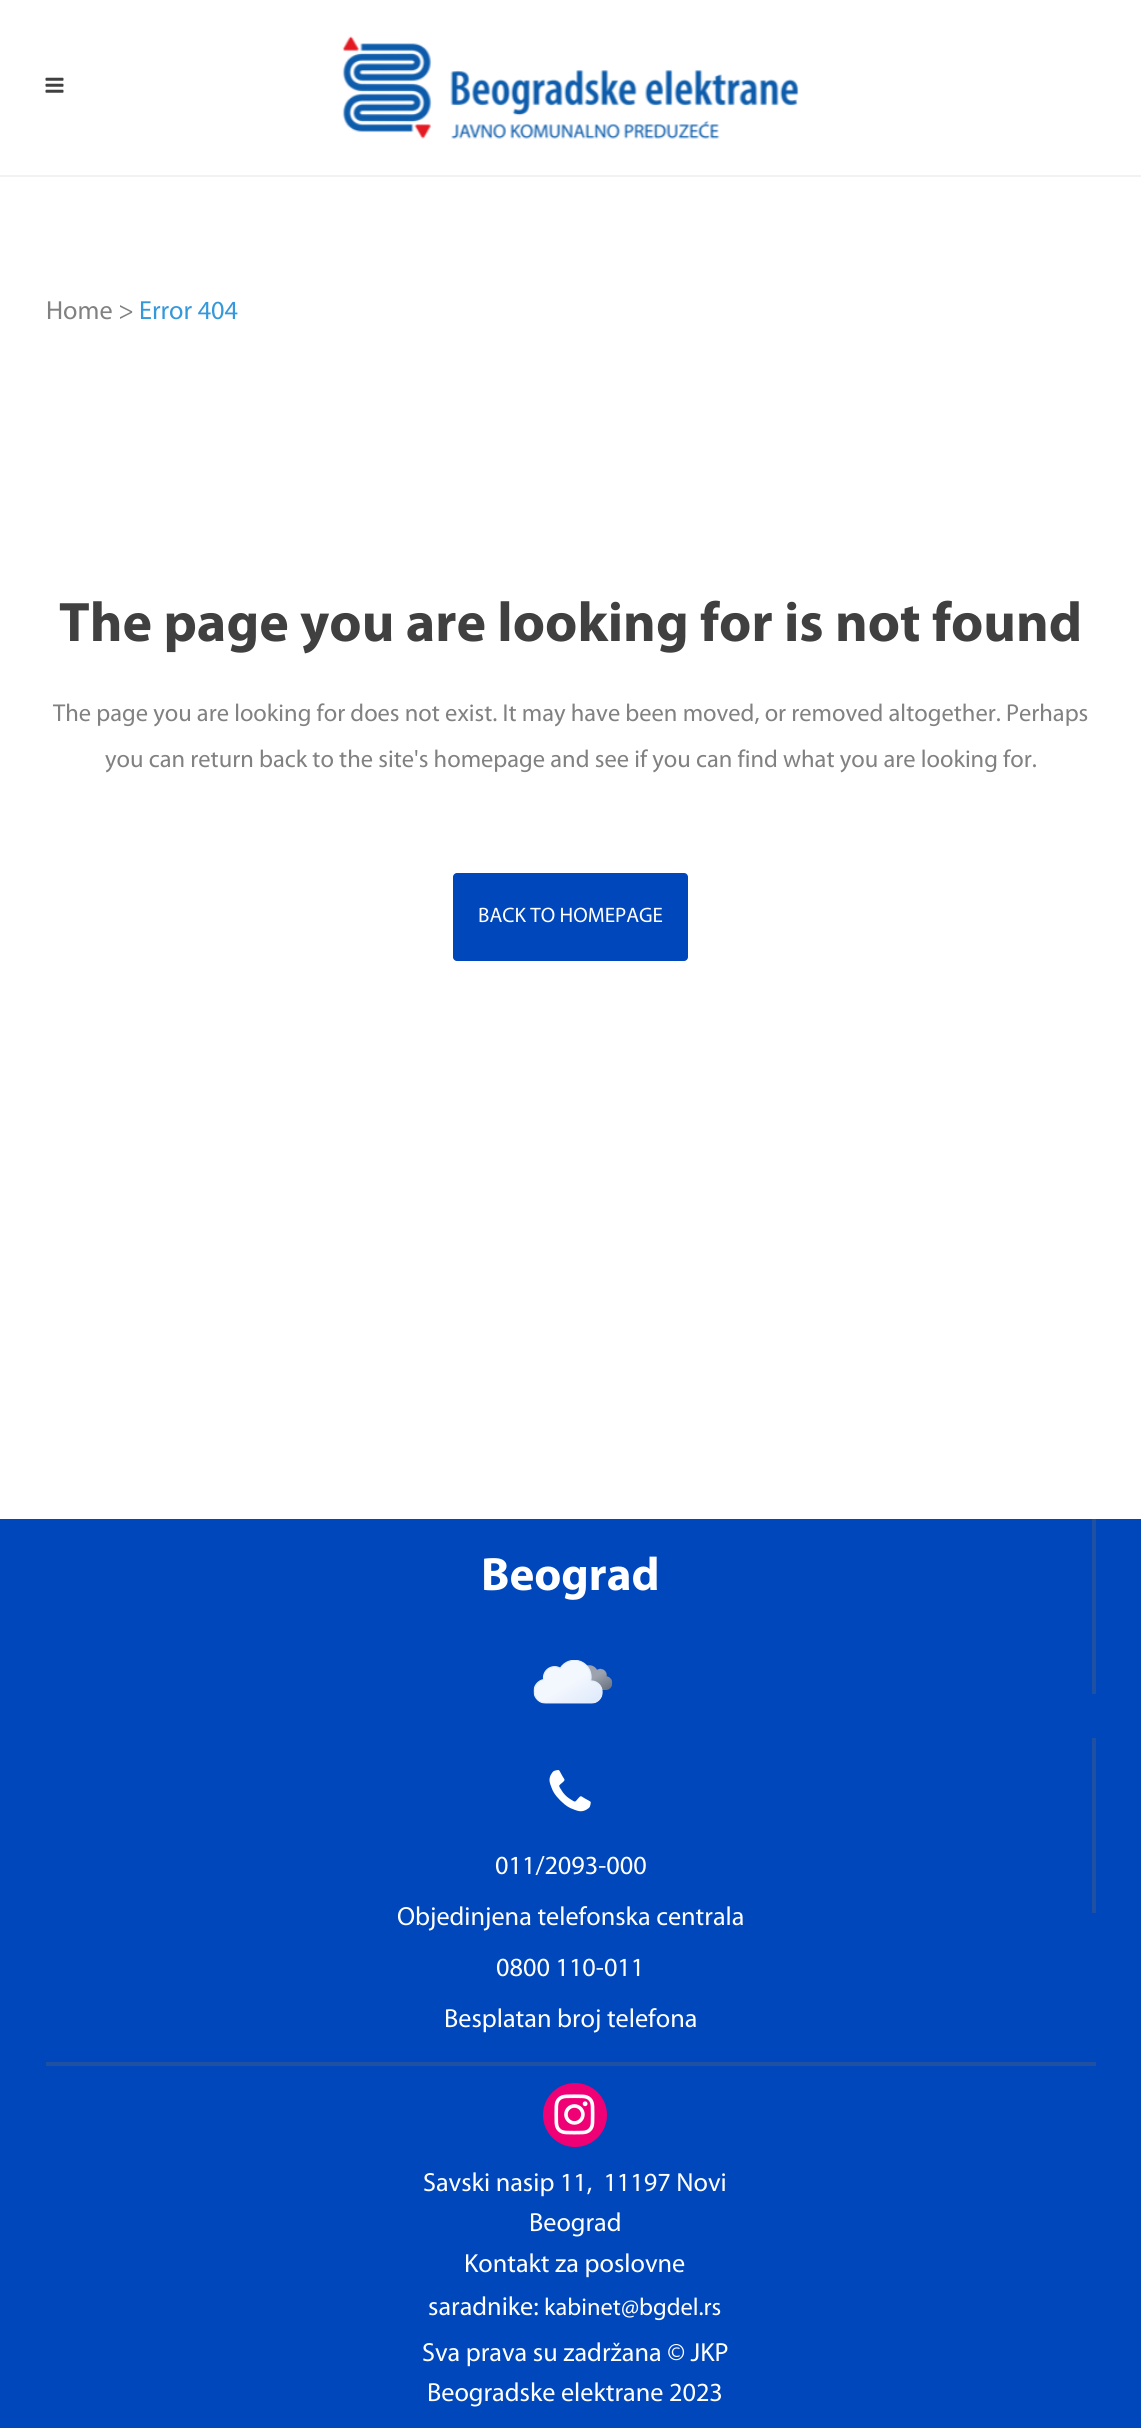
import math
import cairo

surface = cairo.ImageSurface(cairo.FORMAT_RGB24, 1141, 2428)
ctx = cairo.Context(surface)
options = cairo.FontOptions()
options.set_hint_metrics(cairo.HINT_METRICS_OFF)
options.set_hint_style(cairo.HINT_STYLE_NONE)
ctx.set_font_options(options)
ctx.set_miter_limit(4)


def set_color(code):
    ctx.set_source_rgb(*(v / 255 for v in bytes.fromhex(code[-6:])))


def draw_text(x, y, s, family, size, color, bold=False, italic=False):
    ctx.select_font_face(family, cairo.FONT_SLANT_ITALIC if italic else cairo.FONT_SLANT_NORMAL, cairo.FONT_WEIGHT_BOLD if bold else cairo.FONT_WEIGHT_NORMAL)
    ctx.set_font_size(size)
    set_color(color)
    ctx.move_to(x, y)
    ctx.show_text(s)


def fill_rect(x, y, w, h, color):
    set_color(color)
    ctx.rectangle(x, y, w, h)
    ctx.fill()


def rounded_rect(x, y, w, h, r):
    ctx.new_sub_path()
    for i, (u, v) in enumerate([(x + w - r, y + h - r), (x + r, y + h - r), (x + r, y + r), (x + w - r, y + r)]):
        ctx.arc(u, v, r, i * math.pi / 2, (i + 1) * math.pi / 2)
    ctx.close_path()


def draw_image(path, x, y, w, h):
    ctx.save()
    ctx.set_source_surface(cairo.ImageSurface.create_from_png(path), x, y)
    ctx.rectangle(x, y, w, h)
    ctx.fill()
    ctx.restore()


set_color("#ffffff")
ctx.paint()
draw_image("assets/img1.png", 45, 77, 19, 16)
draw_image("assets/img2.png", 342, 36, 457, 103)
fill_rect(0, 175, 1141, 2, "#f2f2f2")
draw_text(46, 319, "Home >", "Myriad", 26.25, "#818181")
draw_text(139, 319, "Error 404", "Myriad", 26.25, "#3498db")
draw_text(59, 641, "The page you are looking for is not found", "Myriad", 56, "#404040", bold=True)
draw_text(53, 721, "The page you are looking for does not exist. It may have been moved, or removed altogether. Perhaps", "Myriad", 24.5, "#818181")
draw_text(105, 767, "you can return back to the site's homepage and see if you can find what you are looking for.", "Myriad", 24.5, "#818181")
set_color("#0047bb")
rounded_rect(453, 873, 235, 88, 4)
ctx.fill()
draw_text(478, 922, "BACK TO HOMEPAGE", "Myriad", 21, "#ffffff")
fill_rect(0, 1519, 1141, 909, "#0047bb")
fill_rect(1092, 1519, 4, 175, "#1f50a2")
draw_text(481, 1590, "Beograd", "Myriad", 47, "#ffffff", bold=True)
draw_image("assets/img3.png", 533, 1660, 80, 44)
fill_rect(1092, 1738, 4, 175, "#1f50a2")
draw_image("assets/img4.png", 549, 1770, 42, 42)
draw_text(495, 1874, "011/2093-000", "Myriad", 26.25, "#ffffff")
draw_text(397, 1925, "Objedinjena telefonska centrala", "Myriad", 26.25, "#ffffff")
draw_text(496, 1976, "0800 110-011", "Myriad", 26.25, "#ffffff")
draw_text(444, 2027, "Besplatan broj telefona", "Myriad", 26.25, "#ffffff")
fill_rect(46, 2062, 1050, 4, "#1f50a2")
set_color("#f00075")
ctx.new_path()
ctx.arc(575, 2115, 32, 0, 2 * math.pi)
ctx.fill()
draw_image("assets/img5.png", 554, 2094, 41, 41)
draw_text(423, 2191, "Savski nasip 11,  11197 Novi", "Myriad", 26.25, "#ffffff")
draw_text(529, 2231, "Beograd", "Myriad", 26.25, "#ffffff")
draw_text(464, 2272, "Kontakt za poslovne", "Myriad", 26.25, "#ffffff")
draw_text(428, 2315, "saradnike:", "Myriad", 26.25, "#ffffff")
draw_text(544, 2315, "kabinet@bgdel.rs", "Myriad", 24.5, "#ffffff")
draw_text(422, 2361, "Sva prava su zadržana © JKP", "Myriad", 26.25, "#ffffff")
draw_text(427, 2401, "Beogradske elektrane 2023", "Myriad", 26.25, "#ffffff")
surface.write_to_png("output.png")
